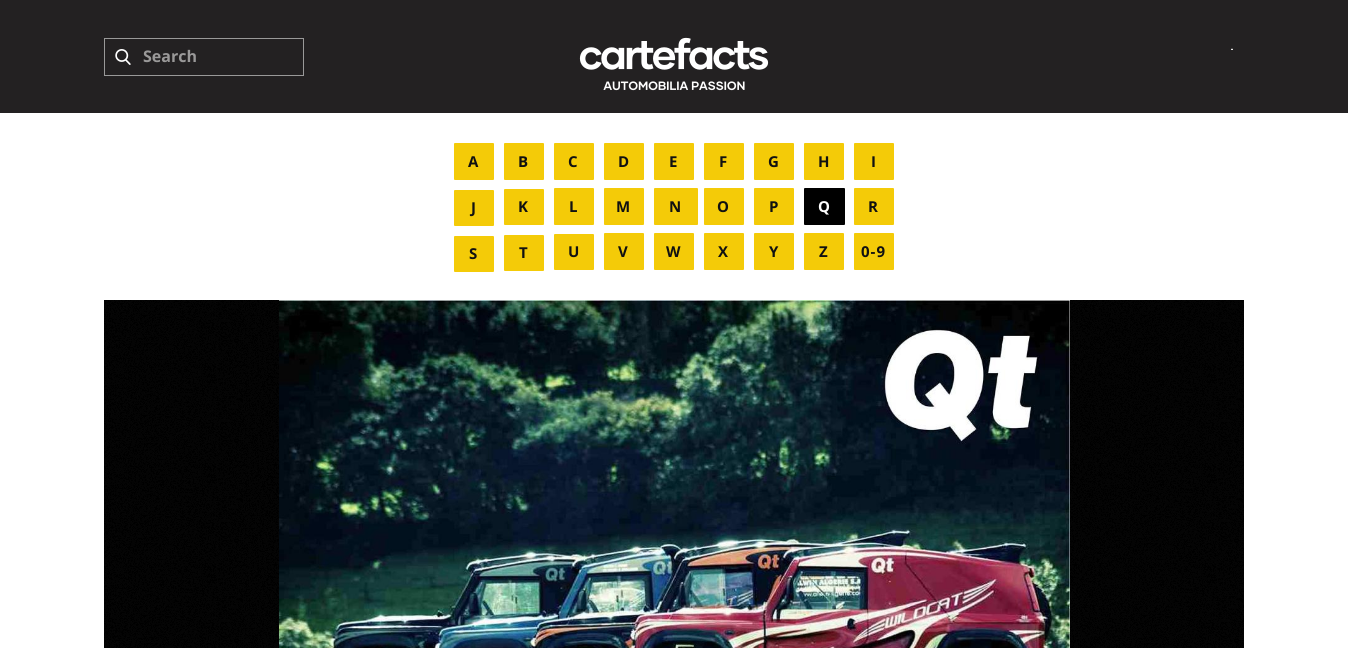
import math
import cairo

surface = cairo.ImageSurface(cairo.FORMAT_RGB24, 1348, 648)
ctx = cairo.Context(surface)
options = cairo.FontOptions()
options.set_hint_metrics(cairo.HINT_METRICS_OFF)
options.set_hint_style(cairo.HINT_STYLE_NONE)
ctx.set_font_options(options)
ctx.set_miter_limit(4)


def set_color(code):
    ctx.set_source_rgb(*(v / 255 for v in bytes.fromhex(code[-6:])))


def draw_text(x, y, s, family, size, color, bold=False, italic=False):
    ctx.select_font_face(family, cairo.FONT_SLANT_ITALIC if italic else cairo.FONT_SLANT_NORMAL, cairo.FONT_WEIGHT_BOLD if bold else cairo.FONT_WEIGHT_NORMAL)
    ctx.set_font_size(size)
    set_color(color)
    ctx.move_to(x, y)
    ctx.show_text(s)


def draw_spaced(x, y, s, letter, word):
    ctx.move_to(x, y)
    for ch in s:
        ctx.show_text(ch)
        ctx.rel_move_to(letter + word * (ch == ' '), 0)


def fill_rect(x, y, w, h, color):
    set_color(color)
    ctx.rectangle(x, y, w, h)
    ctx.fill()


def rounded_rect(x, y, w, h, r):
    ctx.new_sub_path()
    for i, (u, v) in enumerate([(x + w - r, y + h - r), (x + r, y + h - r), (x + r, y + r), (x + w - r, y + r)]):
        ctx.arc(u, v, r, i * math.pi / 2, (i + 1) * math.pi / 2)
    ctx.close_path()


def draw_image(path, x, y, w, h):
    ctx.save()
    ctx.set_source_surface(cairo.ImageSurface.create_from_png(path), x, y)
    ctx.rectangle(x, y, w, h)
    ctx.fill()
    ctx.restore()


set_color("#ffffff")
ctx.paint()
fill_rect(0, 0, 1348, 113, "#232122")
ctx.rectangle(104.5, 38.5, 199, 37)
set_color("#999999")
ctx.set_line_width(1)
ctx.stroke()
draw_image("assets/img1.png", 115, 49, 16, 16)
draw_text(143, 62, "Search", "Open Sans", 16, "#9a9999", bold=True)
draw_image("assets/img2.png", 579, 37, 190, 54)
fill_rect(1231, 48, 2, 1, "#4d4b4c")
fill_rect(1231, 49, 2, 1, "#e5e5e5")
set_color("#f4cb08")
rounded_rect(454, 143, 40, 37, 1)
ctx.fill()
ctx.set_font_size(15)
set_color("#111111")
draw_spaced(468, 167, "A", 1, 0)
set_color("#f4cb08")
rounded_rect(504, 143, 40, 37, 1)
ctx.fill()
set_color("#111111")
draw_spaced(518, 167, "B", 1, 0)
set_color("#f4cb08")
rounded_rect(554, 143, 40, 37, 1)
ctx.fill()
set_color("#111111")
draw_spaced(568, 167, "C", 1, 0)
set_color("#f4cb08")
rounded_rect(604, 143, 40, 37, 1)
ctx.fill()
set_color("#111111")
draw_spaced(618, 167, "D", 1, 0)
set_color("#f4cb08")
rounded_rect(654, 143, 40, 37, 1)
ctx.fill()
set_color("#111111")
draw_spaced(669, 167, "E", 1, 0)
set_color("#f4cb08")
rounded_rect(704, 143, 40, 37, 1)
ctx.fill()
set_color("#111111")
draw_spaced(719, 167, "F", 1, 0)
set_color("#f4cb08")
rounded_rect(754, 143, 40, 37, 1)
ctx.fill()
set_color("#111111")
draw_spaced(768, 167, "G", 1, 0)
set_color("#f4cb08")
rounded_rect(804, 143, 40, 37, 1)
ctx.fill()
set_color("#111111")
draw_spaced(818, 167, "H", 1, 0)
set_color("#f4cb08")
rounded_rect(854, 143, 40, 37, 1)
ctx.fill()
set_color("#111111")
draw_spaced(871, 167, "I", 1, 0)
set_color("#f4cb08")
rounded_rect(454, 190, 40, 36, 1)
ctx.fill()
set_color("#111111")
draw_spaced(471, 213, "J", 1, 0)
set_color("#f4cb08")
rounded_rect(504, 189, 40, 36, 1)
ctx.fill()
set_color("#111111")
draw_spaced(518, 212, "K", 1, 0)
set_color("#f4cb08")
rounded_rect(554, 188, 40, 37, 1)
ctx.fill()
set_color("#111111")
draw_spaced(569, 212, "L", 1, 0)
set_color("#f4cb08")
rounded_rect(604, 188, 40, 37, 1)
ctx.fill()
set_color("#111111")
draw_spaced(616, 212, "M", 1, 0)
set_color("#f4cb08")
rounded_rect(654, 188, 44, 37, 1)
ctx.fill()
set_color("#111111")
draw_spaced(669, 212, "N", 1, 0)
set_color("#f4cb08")
rounded_rect(704, 188, 40, 37, 1)
ctx.fill()
set_color("#111111")
draw_spaced(717, 212, "O", 1, 0)
set_color("#f4cb08")
rounded_rect(754, 188, 40, 37, 1)
ctx.fill()
set_color("#111111")
draw_spaced(769, 212, "P", 1, 0)
set_color("#000000")
rounded_rect(804, 188, 41, 37, 1)
ctx.fill()
set_color("#ffffff")
draw_spaced(818, 212, "Q", 1, 0)
set_color("#f4cb08")
rounded_rect(854, 188, 40, 37, 1)
ctx.fill()
set_color("#111111")
draw_spaced(868, 212, "R", 1, 0)
set_color("#f4cb08")
rounded_rect(454, 236, 40, 36, 1)
ctx.fill()
set_color("#111111")
draw_spaced(469, 259, "S", 1, 0)
set_color("#f4cb08")
rounded_rect(504, 235, 40, 36, 1)
ctx.fill()
set_color("#111111")
draw_spaced(519, 258, "T", 1, 0)
set_color("#f4cb08")
rounded_rect(554, 234, 40, 36, 1)
ctx.fill()
set_color("#111111")
draw_spaced(568, 257, "U", 1, 0)
set_color("#f4cb08")
rounded_rect(604, 233, 40, 37, 1)
ctx.fill()
set_color("#111111")
draw_spaced(618, 257, "V", 1, 0)
set_color("#f4cb08")
rounded_rect(654, 233, 40, 37, 1)
ctx.fill()
set_color("#111111")
draw_spaced(666, 257, "W", 1, 0)
set_color("#f4cb08")
rounded_rect(704, 233, 40, 37, 1)
ctx.fill()
set_color("#111111")
draw_spaced(718, 257, "X", 1, 0)
set_color("#f4cb08")
rounded_rect(754, 233, 40, 37, 1)
ctx.fill()
set_color("#111111")
draw_spaced(769, 257, "Y", 1, 0)
set_color("#f4cb08")
rounded_rect(804, 233, 40, 37, 1)
ctx.fill()
set_color("#111111")
draw_spaced(819, 257, "Z", 1, 0)
set_color("#f4cb08")
rounded_rect(854, 233, 40, 37, 1)
ctx.fill()
set_color("#111111")
draw_spaced(861, 257, "0-9", 1, 0)
fill_rect(104, 300, 1140, 348, "#000000")
draw_image("assets/img3.png", 104, 300, 1140, 348)
draw_image("assets/img4.png", 279, 300, 791, 348)
surface.write_to_png("output.png")
